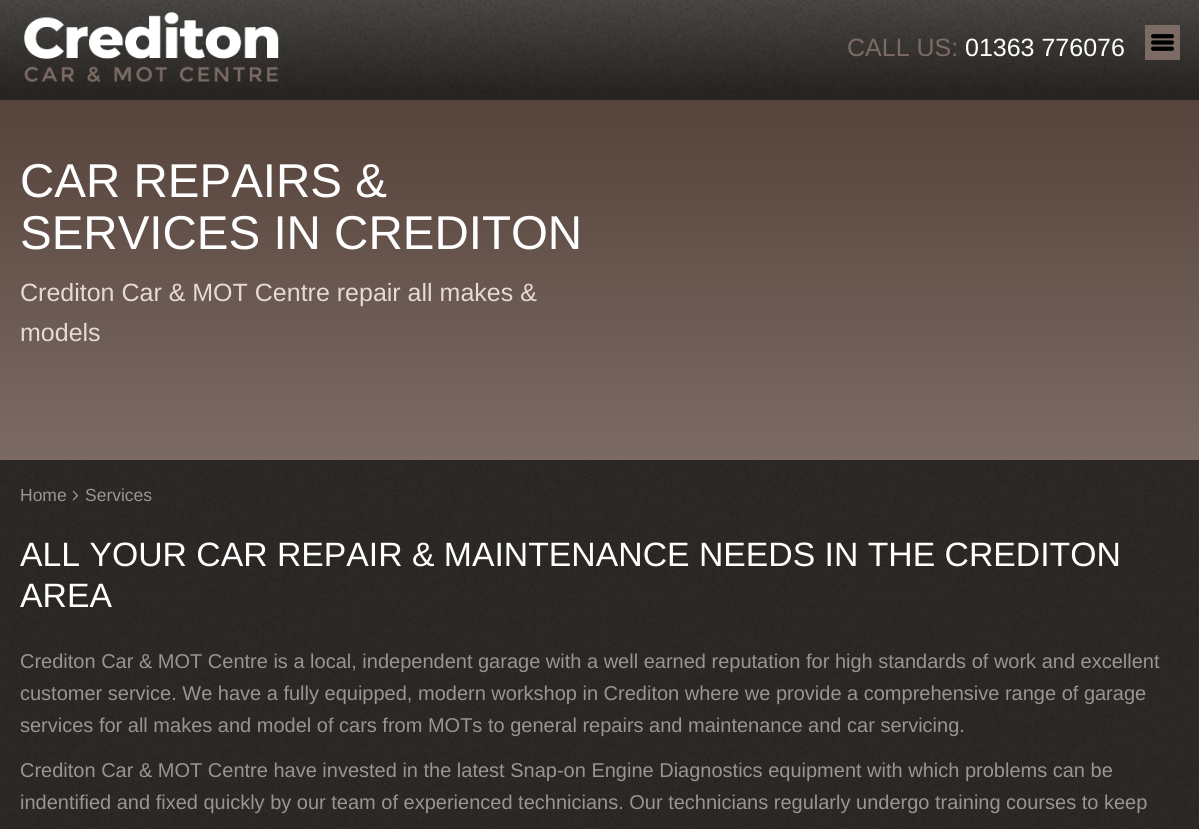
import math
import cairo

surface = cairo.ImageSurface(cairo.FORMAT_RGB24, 1199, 829)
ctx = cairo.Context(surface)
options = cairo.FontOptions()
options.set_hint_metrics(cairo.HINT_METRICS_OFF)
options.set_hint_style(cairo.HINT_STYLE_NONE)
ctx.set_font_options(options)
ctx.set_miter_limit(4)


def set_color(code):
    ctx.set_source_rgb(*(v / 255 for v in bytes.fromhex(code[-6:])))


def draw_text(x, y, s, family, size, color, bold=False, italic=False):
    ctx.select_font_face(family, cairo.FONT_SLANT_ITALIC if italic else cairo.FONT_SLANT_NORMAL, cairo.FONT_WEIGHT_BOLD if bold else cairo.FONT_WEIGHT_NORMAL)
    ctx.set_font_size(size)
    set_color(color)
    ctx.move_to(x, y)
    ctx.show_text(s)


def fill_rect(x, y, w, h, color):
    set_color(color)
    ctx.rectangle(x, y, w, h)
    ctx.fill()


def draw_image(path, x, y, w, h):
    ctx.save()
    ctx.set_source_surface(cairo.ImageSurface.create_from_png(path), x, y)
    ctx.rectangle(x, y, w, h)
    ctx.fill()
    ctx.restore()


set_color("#2c2926")
ctx.paint()
draw_image("assets/img1.png", 0, 460, 1199, 369)
gradient = cairo.LinearGradient(600, 0, 600, 94)
gradient.add_color_stop_rgba(0, 0.29, 0.282, 0.271, 1)
gradient.add_color_stop_rgba(1, 0.153, 0.141, 0.133, 1)
ctx.set_source(gradient)
ctx.rectangle(0, 0, 1199, 94)
ctx.fill()
draw_image("assets/img2.png", 0, 0, 1199, 93)
draw_image("assets/img3.png", 24, 12, 255, 70)
draw_text(847, 56, "CALL US:", "Liberation Sans", 25, "#7b6b64")
draw_text(965, 56, "01363 776076", "Liberation Sans", 25, "#ffffff")
fill_rect(1145, 25, 35, 35, "#7b6b64")
draw_image("assets/img4.png", 1151, 34, 23, 17)
fill_rect(0, 94, 1199, 6, "#272422")
gradient = cairo.LinearGradient(600, 100, 600, 460)
gradient.add_color_stop_rgba(0, 0.337, 0.263, 0.231, 1)
gradient.add_color_stop_rgba(1, 0.482, 0.42, 0.392, 1)
ctx.set_source(gradient)
ctx.rectangle(0, 100, 1199, 360)
ctx.fill()
draw_text(20, 197, "CAR REPAIRS &", "Liberation Sans", 47.5, "#ffffff")
draw_text(20, 249, "SERVICES IN CREDITON", "Liberation Sans", 47.5, "#ffffff")
draw_text(20, 301, "Crediton Car & MOT Centre repair all makes &", "Liberation Sans", 25, "#e7d9d4")
draw_text(20, 341, "models", "Liberation Sans", 25, "#e7d9d4")
draw_text(20, 501, "Home", "Liberation Sans", 17.5, "#969696")
draw_image("assets/img5.png", 72, 490, 7, 11)
draw_text(85, 501, "Services", "Liberation Sans", 17.5, "#969696")
draw_text(20, 566, "ALL YOUR CAR REPAIR & MAINTENANCE NEEDS IN THE CREDITON", "Liberation Sans", 33.75, "#ffffff")
draw_text(20, 607, "AREA", "Liberation Sans", 33.75, "#ffffff")
draw_text(20, 668, "Crediton Car & MOT Centre is a local, independent garage with a well earned reputation for high standards of work and excellent", "Liberation Sans", 20, "#969696")
draw_text(20, 700, "customer service. We have a fully equipped, modern workshop in Crediton where we provide a comprehensive range of garage", "Liberation Sans", 20, "#969696")
draw_text(20, 732, "services for all makes and model of cars from MOTs to general repairs and maintenance and car servicing.", "Liberation Sans", 20, "#969696")
draw_text(20, 777, "Crediton Car & MOT Centre have invested in the latest Snap-on Engine Diagnostics equipment with which problems can be", "Liberation Sans", 20, "#969696")
draw_text(20, 809, "indentified and fixed quickly by our team of experienced technicians. Our technicians regularly undergo training courses to keep", "Liberation Sans", 20, "#969696")
surface.write_to_png("output.png")
